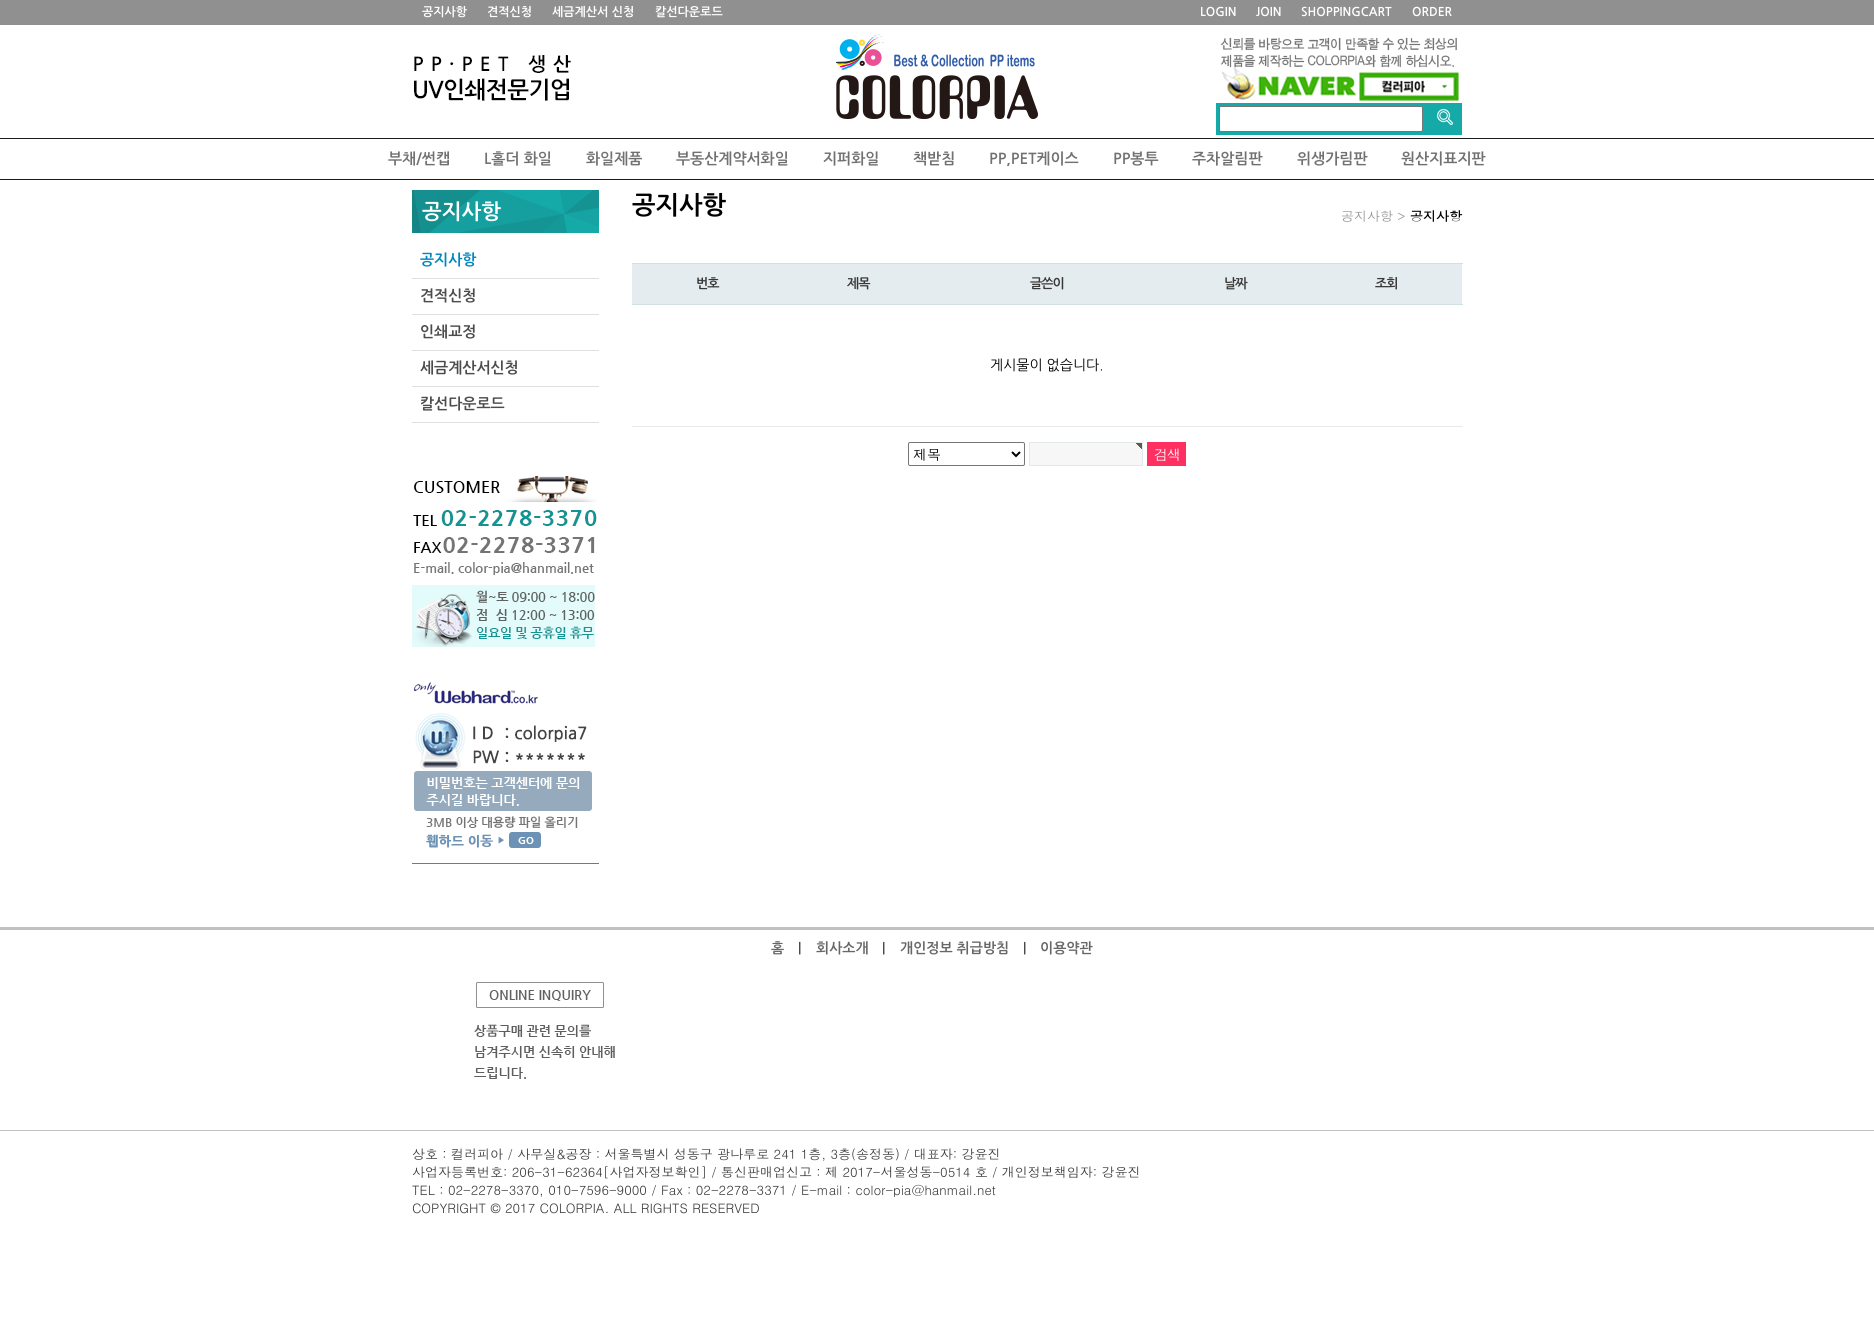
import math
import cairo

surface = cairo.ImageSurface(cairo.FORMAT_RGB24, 1874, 1328)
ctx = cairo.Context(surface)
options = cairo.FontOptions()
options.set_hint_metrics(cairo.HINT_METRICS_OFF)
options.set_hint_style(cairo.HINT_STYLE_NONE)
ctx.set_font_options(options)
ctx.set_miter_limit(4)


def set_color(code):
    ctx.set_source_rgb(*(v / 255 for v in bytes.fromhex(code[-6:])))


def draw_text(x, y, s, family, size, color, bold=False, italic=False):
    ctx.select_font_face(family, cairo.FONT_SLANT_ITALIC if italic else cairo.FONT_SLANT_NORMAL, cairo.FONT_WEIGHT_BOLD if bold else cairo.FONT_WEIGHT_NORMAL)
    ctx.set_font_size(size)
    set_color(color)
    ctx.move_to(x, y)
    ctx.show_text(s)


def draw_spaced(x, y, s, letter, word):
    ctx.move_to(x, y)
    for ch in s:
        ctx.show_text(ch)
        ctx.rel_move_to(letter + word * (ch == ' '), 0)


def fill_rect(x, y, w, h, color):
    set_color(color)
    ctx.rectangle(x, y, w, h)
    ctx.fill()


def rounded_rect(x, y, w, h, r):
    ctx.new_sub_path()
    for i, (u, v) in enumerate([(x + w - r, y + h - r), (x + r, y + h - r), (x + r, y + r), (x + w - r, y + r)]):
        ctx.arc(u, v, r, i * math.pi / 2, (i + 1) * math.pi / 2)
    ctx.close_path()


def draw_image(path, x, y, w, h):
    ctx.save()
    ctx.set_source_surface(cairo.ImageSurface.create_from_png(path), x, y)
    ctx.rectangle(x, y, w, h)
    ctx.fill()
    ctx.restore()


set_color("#ffffff")
ctx.paint()
fill_rect(0, 0, 1874, 25, "#909090")
draw_text(422, 16, "공지사항", "NanumGothic", 12, "#ffffff", bold=True)
draw_text(487, 16, "견적신청", "NanumGothic", 12, "#ffffff", bold=True)
draw_text(552, 16, "세금계산서 신청", "NanumGothic", 12, "#ffffff", bold=True)
draw_text(655, 16, "칼선다운로드", "NanumGothic", 12, "#ffffff", bold=True)
draw_text(1200, 16, "LOGIN", "NanumGothic", 12, "#ffffff", bold=True)
draw_text(1256, 16, "JOIN", "NanumGothic", 12, "#ffffff", bold=True)
draw_text(1301, 16, "SHOPPINGCART", "NanumGothic", 12, "#ffffff", bold=True)
draw_text(1412, 16, "ORDER", "NanumGothic", 12, "#ffffff", bold=True)
draw_image("assets/img1.png", 414, 55, 157, 46)
draw_image("assets/img2.png", 836, 34, 202, 85)
draw_image("assets/img3.png", 1220, 37, 239, 65)
fill_rect(1216, 103, 246, 32, "#15aaa8")
set_color("#ffffff")
rounded_rect(1219.5, 106.5, 203, 25, 1.5)
ctx.fill_preserve()
set_color("#767676")
ctx.set_line_width(1)
ctx.stroke()
draw_image("assets/img4.png", 1437, 109, 16, 16)
fill_rect(0, 138, 1874, 1, "#1b1b1b")
fill_rect(0, 179, 1874, 1, "#1b1b1b")
draw_text(388, 164, "부채/썬캡", "NanumGothic", 15, "#717171", bold=True)
draw_text(484, 164, "L홀더 화일", "NanumGothic", 15, "#717171", bold=True)
draw_text(586, 164, "화일제품", "NanumGothic", 15, "#717171", bold=True)
draw_text(676, 164, "부동산계약서화일", "NanumGothic", 15, "#717171", bold=True)
draw_text(823, 164, "지퍼화일", "NanumGothic", 15, "#717171", bold=True)
draw_text(913, 164, "책받침", "NanumGothic", 15, "#717171", bold=True)
draw_text(989, 164, "PP,PET케이스", "NanumGothic", 15, "#717171", bold=True)
draw_text(1113, 164, "PP봉투", "NanumGothic", 15, "#717171", bold=True)
draw_text(1192, 164, "주차알림판", "NanumGothic", 15, "#717171", bold=True)
draw_text(1297, 164, "위생가림판", "NanumGothic", 15, "#717171", bold=True)
draw_text(1401, 164, "원산지표지판", "NanumGothic", 15, "#717171", bold=True)
draw_image("assets/img5.png", 412, 190, 187, 43)
draw_text(422, 219, "공지사항", "NanumGothic", 21, "#ffffff", bold=True)
fill_rect(412, 278, 187, 1, "#dfdfdf")
draw_text(420, 265, "공지사항", "NanumGothic", 15, "#0186bc", bold=True)
fill_rect(412, 314, 187, 1, "#dfdfdf")
draw_text(420, 301, "견적신청", "NanumGothic", 15, "#4c4c4c", bold=True)
fill_rect(412, 350, 187, 1, "#dfdfdf")
draw_text(420, 337, "인쇄교정", "NanumGothic", 15, "#4c4c4c", bold=True)
fill_rect(412, 386, 187, 1, "#dfdfdf")
draw_text(420, 373, "세금계산서신청", "NanumGothic", 15, "#4c4c4c", bold=True)
fill_rect(412, 422, 187, 1, "#dfdfdf")
draw_text(420, 409, "칼선다운로드", "NanumGothic", 15, "#4c4c4c", bold=True)
draw_image("assets/img6.png", 412, 476, 185, 171)
draw_image("assets/img7.png", 412, 682, 187, 182)
draw_text(632, 214, "공지사항", "NanumGothic", 25, "#000000", bold=True)
draw_text(1341, 221, "공지사항 >", "Dotum", 13, "#949494")
draw_text(1410, 221, "공지사항", "Dotum", 13, "#000000", bold=True)
fill_rect(632, 264, 830, 40, "#e5ecef")
ctx.select_font_face("NanumGothic", cairo.FONT_SLANT_NORMAL, cairo.FONT_WEIGHT_BOLD)
set_color("#383838")
draw_spaced(696, 288, "번호", -1, 0)
draw_spaced(847, 288, "제목", -1, 0)
draw_spaced(1030, 288, "글쓴이", -1, 0)
draw_spaced(1224, 288, "날짜", -1, 0)
fill_rect(632, 263, 831, 1, "#d1dee2")
fill_rect(632, 304, 831, 1, "#d1dee2")
set_color("#383838")
draw_spaced(1375, 288, "조회", -1, 0)
fill_rect(632, 426, 831, 1, "#e9e9e9")
draw_text(990, 370, "게시물이 없습니다.", "NanumGothic", 14, "#000000")
rounded_rect(908.5, 442.5, 116, 23, 1.5)
set_color("#767676")
ctx.stroke()
ctx.new_path()
ctx.move_to(1012, 452)
ctx.line_to(1016, 456)
ctx.line_to(1020, 452)
set_color("#000000")
ctx.set_line_width(2)
ctx.stroke()
draw_text(913, 460, "제목", "Dotum", 14, "#000000")
fill_rect(1030, 443, 112, 22, "#f7f7f7")
draw_image("assets/img8.png", 1136, 443, 6, 6)
ctx.rectangle(1029.5, 442.5, 113, 23)
set_color("#e4eaec")
ctx.set_line_width(1)
ctx.stroke()
fill_rect(1147, 442, 39, 24, "#ff3061")
set_color("#ffffff")
draw_spaced(1154, 460, "검색", -1, 0)
fill_rect(0, 927, 1874, 3, "#c1c1c1")
draw_text(771, 953, "홈", "NanumGothic", 14, "#676767", bold=True)
draw_text(798, 953, "|", "NanumGothic", 14, "#000000")
draw_text(816, 953, "회사소개", "NanumGothic", 14, "#676767", bold=True)
draw_text(882, 953, "|", "NanumGothic", 14, "#000000")
draw_text(900, 953, "개인정보 취급방침", "NanumGothic", 14, "#676767", bold=True)
draw_text(1023, 953, "|", "NanumGothic", 14, "#000000")
draw_text(1040, 953, "이용약관", "NanumGothic", 14, "#676767", bold=True)
draw_image("assets/img9.png", 474, 982, 141, 97)
fill_rect(0, 1130, 1874, 1, "#c1c1c1")
draw_text(412, 1159, "상호 : 컬러피아 / 사무실&공장 : 서울특별시 성동구 광나루로 241 1층, 3층(송정동) / 대표자: 강윤진", "Dotum", 13, "#383838")
draw_text(412, 1177, "사업자등록번호: 206-31-62364[사업자정보확인] / 통신판매업신고 : 제 2017-서울성동-0514 호 / 개인정보책임자: 강윤진", "Dotum", 13, "#383838")
draw_text(412, 1195, "TEL : 02-2278-3370, 010-7596-9000 / Fax : 02-2278-3371 / E-mail : color-pia@hanmail.net", "Dotum", 13, "#383838")
draw_text(412, 1213, "COPYRIGHT © 2017 COLORPIA. ALL RIGHTS RESERVED", "Dotum", 13, "#383838")
surface.write_to_png("output.png")
